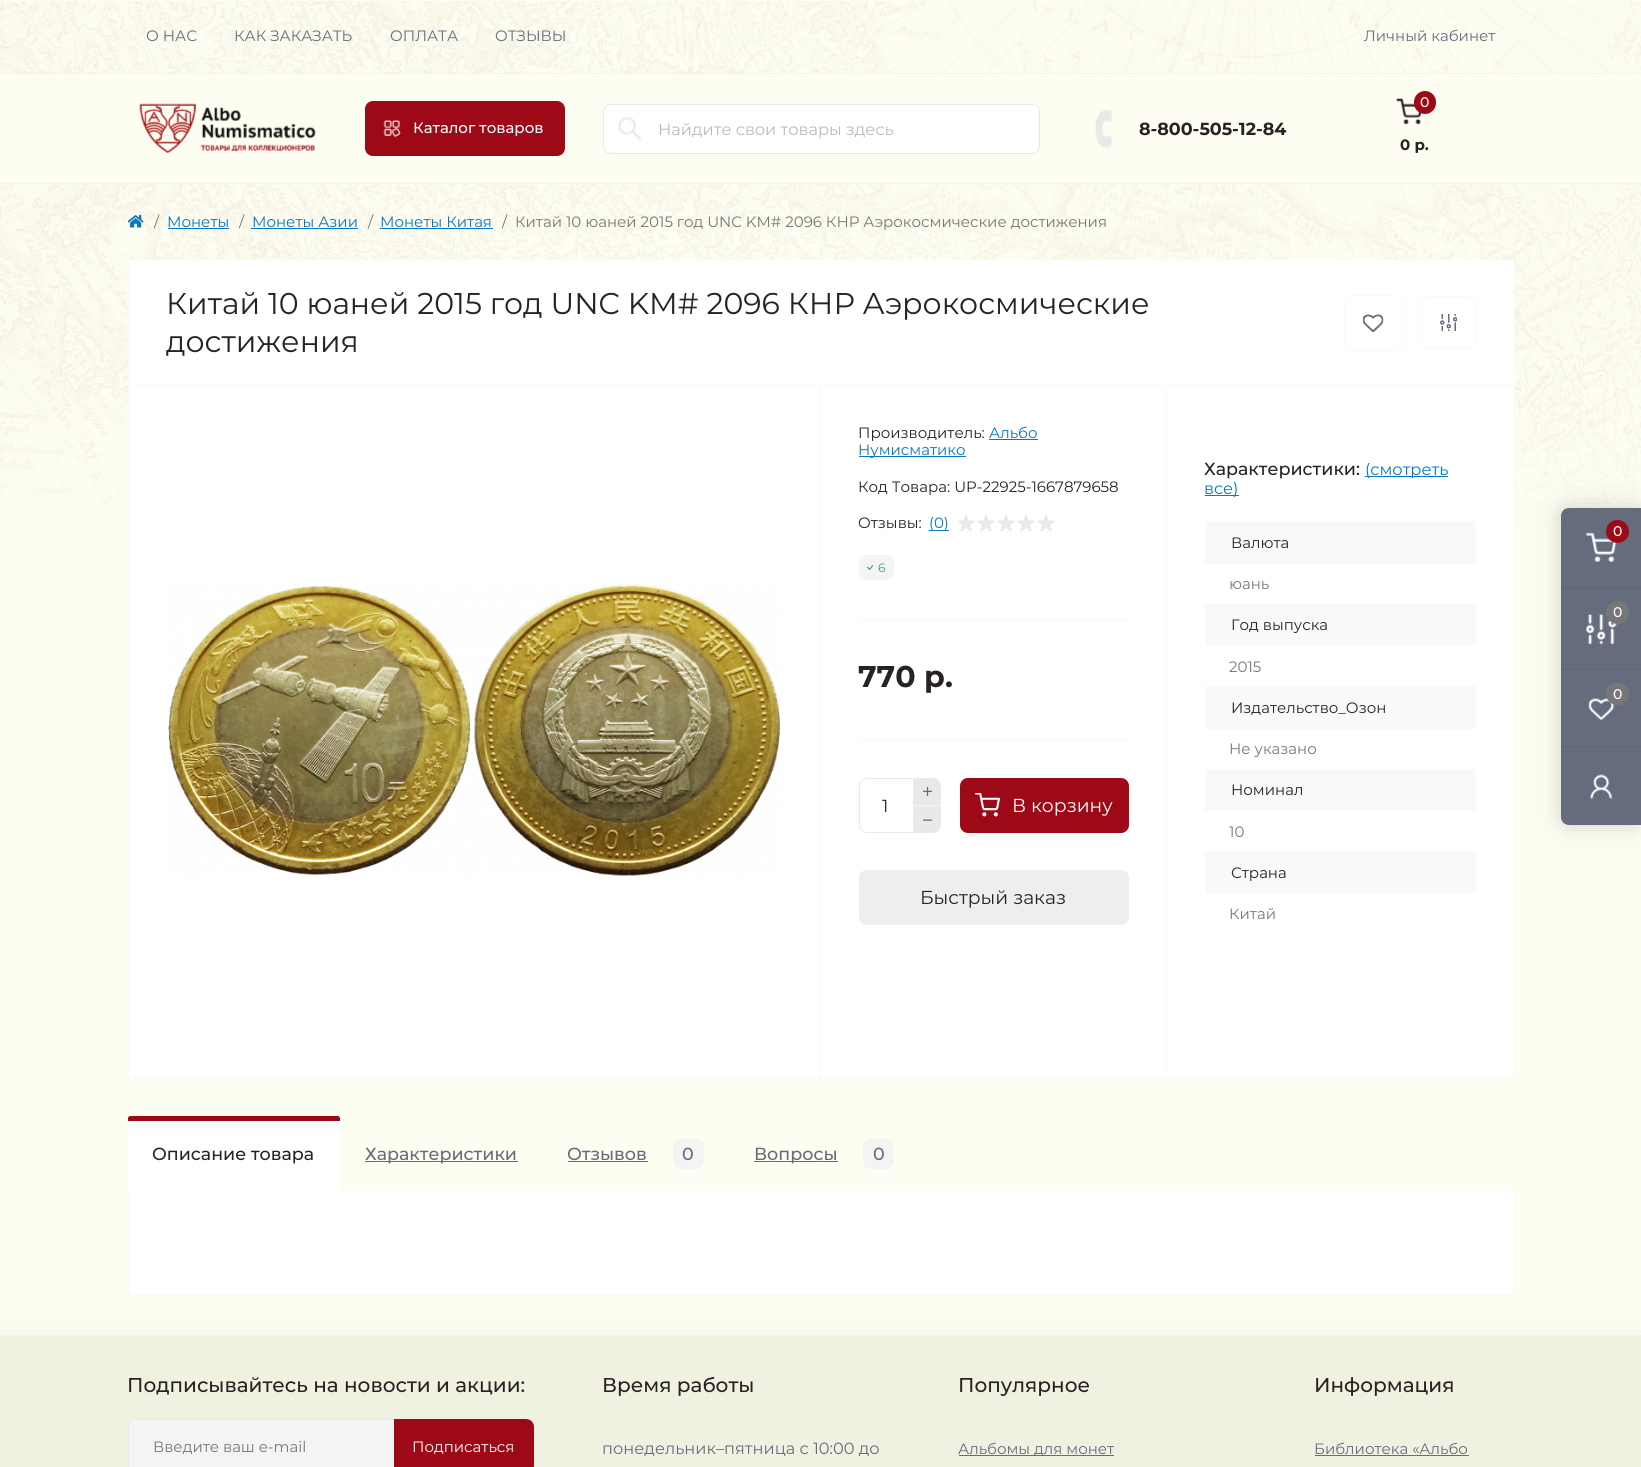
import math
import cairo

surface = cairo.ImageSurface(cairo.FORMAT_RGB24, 1641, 1467)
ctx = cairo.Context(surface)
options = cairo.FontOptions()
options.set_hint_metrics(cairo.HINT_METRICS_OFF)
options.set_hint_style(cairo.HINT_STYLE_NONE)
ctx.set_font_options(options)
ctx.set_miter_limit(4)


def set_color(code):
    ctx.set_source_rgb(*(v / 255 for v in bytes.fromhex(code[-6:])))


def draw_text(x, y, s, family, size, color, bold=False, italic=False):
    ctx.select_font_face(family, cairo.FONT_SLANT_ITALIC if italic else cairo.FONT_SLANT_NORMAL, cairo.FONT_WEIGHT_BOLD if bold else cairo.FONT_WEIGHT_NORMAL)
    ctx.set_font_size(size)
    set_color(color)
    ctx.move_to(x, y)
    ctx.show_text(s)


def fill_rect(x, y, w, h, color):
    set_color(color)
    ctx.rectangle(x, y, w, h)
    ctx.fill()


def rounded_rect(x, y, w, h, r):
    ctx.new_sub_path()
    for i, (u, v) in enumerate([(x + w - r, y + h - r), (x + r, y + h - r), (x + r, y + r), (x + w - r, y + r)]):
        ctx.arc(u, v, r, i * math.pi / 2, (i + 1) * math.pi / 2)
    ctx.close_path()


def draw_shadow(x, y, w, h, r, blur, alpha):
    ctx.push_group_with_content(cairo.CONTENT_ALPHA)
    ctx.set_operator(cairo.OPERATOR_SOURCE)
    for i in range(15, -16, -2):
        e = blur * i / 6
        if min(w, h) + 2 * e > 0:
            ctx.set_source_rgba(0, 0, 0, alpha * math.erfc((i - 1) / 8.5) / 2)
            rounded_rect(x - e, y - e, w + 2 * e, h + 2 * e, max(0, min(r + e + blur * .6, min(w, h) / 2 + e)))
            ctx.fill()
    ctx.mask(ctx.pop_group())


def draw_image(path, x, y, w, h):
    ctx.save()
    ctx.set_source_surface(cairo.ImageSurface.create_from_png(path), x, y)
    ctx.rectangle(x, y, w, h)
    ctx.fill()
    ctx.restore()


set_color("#fdfdf1")
ctx.paint()
draw_image("assets/img1.png", 0, 1, 1641, 524)
draw_text(146, 41, "О НАС", "Montserrat", 15, "#656c7d")
draw_text(234, 41, "КАК ЗАКАЗАТЬ", "Montserrat", 15, "#656c7d")
draw_text(390, 41, "ОПЛАТА", "Montserrat", 15, "#656c7d")
draw_text(495, 41, "ОТЗЫВЫ", "Montserrat", 15, "#656c7d")
draw_text(1364, 41, "Личный кабинет", "Montserrat", 15, "#656c7d")
fill_rect(0, 74, 1641, 109, "#fdfdf1")
fill_rect(0, 73, 1641, 1, "#f3f3f3")
fill_rect(0, 183, 1641, 1, "#f3f3f3")
draw_image("assets/img2.png", 139, 103, 177, 50)
set_color("#9d0917")
rounded_rect(365, 101, 200, 55, 8)
ctx.fill()
draw_image("assets/img3.png", 383, 119, 18, 18)
draw_text(413, 133, "Каталог товаров", "Montserrat Medium", 15, "#ffffff")
rounded_rect(603.5, 104.5, 436, 49, 7.5)
ctx.fill_preserve()
set_color("#e9e9e9")
ctx.set_line_width(1)
ctx.stroke()
draw_image("assets/img4.png", 618, 116, 24, 25)
draw_text(658, 135, "Найдите свои товары здесь", "Montserrat", 16.25, "#bbbbbb")
draw_image("assets/img5.png", 1095, 110, 17, 38)
draw_text(1139, 135, "8-800-505-12-84", "Montserrat", 17.5, "#272323", bold=True)
draw_image("assets/img6.png", 1396, 98, 26, 27)
set_color("#9d0917")
rounded_rect(1414, 91, 22, 23, 11)
ctx.fill()
draw_text(1420, 107, "0", "Montserrat Medium", 14, "#ffffff")
draw_text(1400, 150, "0 р.", "Montserrat", 15, "#272323", bold=True)
draw_image("assets/img7.png", 128, 215, 16, 13)
draw_text(154, 227, "/", "Montserrat", 15, "#777777")
draw_text(167, 227, "Монеты", "Montserrat", 15, "#0a78bf")
fill_rect(168, 228, 61, 1, "#0a78bf")
draw_text(239, 227, "/", "Montserrat", 15, "#777777")
draw_text(252, 227, "Монеты Азии", "Montserrat", 15, "#0a78bf")
fill_rect(251, 228, 107, 1, "#0a78bf")
draw_text(368, 227, "/", "Montserrat", 15, "#777777")
draw_text(380, 227, "Монеты Китая", "Montserrat", 15, "#0a78bf")
fill_rect(380, 228, 113, 1, "#0a78bf")
draw_text(502, 227, "/", "Montserrat", 15, "#777777")
draw_text(515, 227, "Китай 10 юаней 2015 год UNC KM# 2096 КНР Аэрокосмические достижения", "Montserrat", 15, "#777777")
set_color("#ffffff")
rounded_rect(128.5, 259.5, 1386, 819, 2)
ctx.fill_preserve()
set_color("#f9f9fc")
ctx.stroke()
fill_rect(129, 385, 1385, 1, "#f9f9fc")
draw_text(166, 314, "Китай 10 юаней 2015 год UNC KM# 2096 КНР Аэрокосмические", "Montserrat", 30, "#272323")
draw_text(166, 352, "достижения", "Montserrat", 30, "#272323")
rounded_rect(1344.5, 295.5, 58, 55, 7.5)
set_color("#f9f9fc")
ctx.stroke()
draw_image("assets/img8.png", 1363, 314, 21, 18)
rounded_rect(1421.5, 296.5, 54, 52, 7.5)
ctx.stroke()
draw_image("assets/img9.png", 1440, 314, 17, 17)
fill_rect(820, 386, 1, 692, "#f9f9fc")
draw_image("assets/img10.png", 168, 584, 613, 293)
fill_rect(1166, 386, 1, 692, "#f9f9fc")
fill_rect(859, 619, 270, 1, "#f9f9f9")
draw_text(858, 438, "Производитель:", "Montserrat", 15, "#272323")
draw_text(989, 438, "Альбо", "Montserrat", 15, "#0a78bf")
fill_rect(989, 439, 49, 1, "#0a78bf")
fill_rect(859, 456, 107, 1, "#0a78bf")
draw_text(858, 455, "Нумисматико", "Montserrat", 15, "#0a78bf")
draw_text(858, 492, "Код Товара: UP-22925-1667879658", "Montserrat", 15, "#272323")
draw_text(858, 528, "Отзывы:", "Montserrat", 15, "#272323")
fill_rect(929, 530, 20, 1, "#0a78bf")
draw_text(929, 528, "(0)", "Montserrat", 15, "#0a78bf")
draw_image("assets/img11.png", 957, 515, 18, 17)
draw_image("assets/img11.png", 977, 515, 18, 17)
draw_image("assets/img11.png", 997, 515, 18, 17)
draw_image("assets/img12.png", 1017, 515, 18, 17)
draw_image("assets/img11.png", 1037, 515, 18, 17)
set_color("#f4f4f4")
rounded_rect(859, 555, 35, 25, 8)
ctx.fill()
draw_image("assets/img13.png", 867, 565, 7, 5)
draw_text(878, 572, "6", "Montserrat", 12, "#27ae60")
fill_rect(859, 739, 270, 1, "#f9f9f9")
draw_text(858, 687, "770 р.", "Montserrat", 30, "#272323", bold=True)
ctx.new_path()
ctx.move_to(867, 778.5)
ctx.line_to(913.5, 778.5)
ctx.line_to(913.5, 832.5)
ctx.line_to(867, 832.5)
ctx.curve_to(863, 832.5, 859.5, 829, 859.5, 825)
ctx.line_to(859.5, 786)
ctx.curve_to(859.5, 782, 863, 778.5, 867, 778.5)
ctx.close_path()
set_color("#e9e9e9")
ctx.stroke()
draw_text(882, 812, "1", "Montserrat", 17.5, "#272323")
set_color("#e9e9e9")
ctx.new_path()
ctx.move_to(914, 778)
ctx.line_to(933, 778)
ctx.curve_to(937.5, 778, 941, 781.5, 941, 786)
ctx.line_to(941, 805)
ctx.line_to(914, 805)
ctx.close_path()
ctx.fill()
draw_image("assets/img14.png", 923, 786, 9, 10)
fill_rect(914, 805, 27, 1, "#f4f4f4")
set_color("#e9e9e9")
ctx.new_path()
ctx.move_to(914, 806)
ctx.line_to(941, 806)
ctx.line_to(941, 825)
ctx.curve_to(941, 829.5, 937.5, 833, 933, 833)
ctx.line_to(914, 833)
ctx.close_path()
ctx.fill()
draw_image("assets/img15.png", 923, 819, 9, 2)
set_color("#9d0917")
rounded_rect(960, 778, 169, 55, 8)
ctx.fill()
draw_image("assets/img16.png", 975, 793, 25, 24)
draw_text(1012, 812, "В корзину", "Montserrat", 18.75, "#ffffff")
set_color("#eeeeee")
rounded_rect(859, 870, 270, 55, 8)
ctx.fill()
draw_text(920, 904, "Быстрый заказ", "Montserrat", 18.75, "#272323")
draw_text(1204, 475, "Характеристики:", "Montserrat Medium", 17.5, "#272323")
fill_rect(1365, 476, 83, 1, "#0a78bf")
draw_text(1365, 475, "(смотреть", "Montserrat", 16.25, "#0a78bf")
fill_rect(1205, 495, 34, 1, "#0a78bf")
draw_text(1204, 494, "все)", "Montserrat", 16.25, "#0a78bf")
fill_rect(1205, 521, 271, 43, "#f9f9f9")
draw_text(1231, 548, "Валюта", "Montserrat", 15, "#272323")
draw_text(1229, 589, "юань", "Montserrat", 15, "#777777")
fill_rect(1205, 604, 271, 42, "#f9f9f9")
draw_text(1231, 630, "Год выпуска", "Montserrat", 15, "#272323")
draw_text(1229, 672, "2015", "Montserrat", 15, "#777777")
fill_rect(1205, 686, 271, 43, "#f9f9f9")
draw_text(1231, 713, "Издательство_Озон", "Montserrat", 15, "#272323")
draw_text(1229, 754, "Не указано", "Montserrat", 15, "#777777")
fill_rect(1205, 769, 271, 42, "#f9f9f9")
draw_text(1231, 795, "Номинал", "Montserrat", 15, "#272323")
draw_text(1229, 837, "10", "Montserrat", 15, "#777777")
fill_rect(1205, 851, 271, 43, "#f9f9f9")
draw_text(1231, 878, "Страна", "Montserrat", 15, "#272323")
draw_text(1229, 919, "Китай", "Montserrat", 15, "#777777")
set_color("#ffffff")
ctx.rectangle(128.5, 1189.5, 1386, 106)
ctx.fill_preserve()
set_color("#f9f9fc")
ctx.stroke()
set_color("#ffffff")
ctx.new_path()
ctx.move_to(130.5, 1116)
ctx.line_to(337.5, 1116)
ctx.curve_to(339, 1116, 340, 1117, 340, 1118.5)
ctx.line_to(340, 1191)
ctx.line_to(128, 1191)
ctx.line_to(128, 1118.5)
ctx.curve_to(128, 1117, 129, 1116, 130.5, 1116)
ctx.close_path()
ctx.fill()
set_color("#9d0917")
ctx.new_path()
ctx.move_to(130.5, 1116)
ctx.line_to(337.5, 1116)
ctx.curve_to(339, 1116, 340, 1117, 340, 1118.5)
ctx.line_to(340, 1121)
ctx.line_to(128, 1121)
ctx.line_to(128, 1118.5)
ctx.curve_to(128, 1117, 129, 1116, 130.5, 1116)
ctx.close_path()
ctx.fill()
draw_text(152, 1160, "Описание товара", "Montserrat Medium", 17.5, "#272323")
fill_rect(365, 1161, 153, 1, "#656c7d")
draw_text(365, 1160, "Характеристики", "Montserrat Medium", 17.5, "#656c7d")
draw_text(567, 1160, "Отзывов", "Montserrat Medium", 17.5, "#656c7d")
fill_rect(568, 1161, 80, 1, "#656c7d")
set_color("#f4f4f4")
rounded_rect(673, 1139, 31, 30, 8)
ctx.fill()
draw_text(682, 1160, "0", "Montserrat Medium", 17.5, "#656c7d")
fill_rect(754, 1161, 84, 1, "#656c7d")
draw_text(754, 1160, "Вопросы", "Montserrat Medium", 17.5, "#656c7d")
set_color("#f4f4f4")
rounded_rect(863, 1139, 31, 30, 8)
ctx.fill()
draw_text(873, 1160, "0", "Montserrat Medium", 17.5, "#656c7d")
set_color("#000000")
draw_shadow(1561, 508, 80, 317, 8, 12.5, 0.17)
set_color("#656c7d")
ctx.new_path()
ctx.move_to(1569, 508)
ctx.line_to(1641, 508)
ctx.line_to(1641, 825)
ctx.line_to(1569, 825)
ctx.curve_to(1564.5, 825, 1561, 821.5, 1561, 817)
ctx.line_to(1561, 516)
ctx.curve_to(1561, 511.5, 1564.5, 508, 1569, 508)
ctx.close_path()
ctx.fill()
draw_image("assets/img17.png", 1586, 532, 31, 30)
set_color("#9d0917")
ctx.arc(1617.5, 531.5, 11.5, 0, 2 * math.pi)
ctx.fill()
draw_text(1613, 536, "0", "Montserrat Medium", 14, "#ffffff")
fill_rect(1561, 588, 80, 1, "#5d6474")
draw_image("assets/img18.png", 1586, 614, 31, 31)
set_color("#777777")
ctx.arc(1617.5, 612.5, 11.5, 0, 2 * math.pi)
ctx.fill()
draw_text(1613, 617, "0", "Montserrat Medium", 14, "#ffffff")
fill_rect(1561, 669, 80, 1, "#5d6474")
draw_image("assets/img19.png", 1588, 698, 27, 22)
set_color("#777777")
rounded_rect(1606, 683, 23, 22, 11)
ctx.fill()
draw_text(1613, 699, "0", "Montserrat Medium", 14, "#ffffff")
fill_rect(1561, 746, 80, 1, "#5d6474")
draw_image("assets/img20.png", 1590, 774, 23, 25)
set_color("#000000")
draw_shadow(0, 1334, 1641, 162, 0, 9.5, 0.06)
fill_rect(0, 1335, 1641, 132, "#f1f1e2")
fill_rect(0, 1334, 1641, 1, "#f9f9fc")
draw_text(127, 1392, "Подписывайтесь на новости и акции:", "Montserrat Medium", 20, "#272323")
set_color("#f4f4f4")
ctx.new_path()
ctx.move_to(136, 1419)
ctx.line_to(394, 1419)
ctx.line_to(394, 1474)
ctx.line_to(136, 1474)
ctx.curve_to(131.5, 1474, 128, 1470.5, 128, 1466)
ctx.line_to(128, 1427)
ctx.curve_to(128, 1422.5, 131.5, 1419, 136, 1419)
ctx.close_path()
ctx.fill()
set_color("#e9e9e9")
ctx.set_fill_rule(cairo.FILL_RULE_EVEN_ODD)
ctx.new_path()
ctx.move_to(135, 1419)
ctx.line_to(394, 1419)
ctx.line_to(394, 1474)
ctx.line_to(135, 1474)
ctx.curve_to(131, 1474, 128, 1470, 128, 1466)
ctx.line_to(128, 1426)
ctx.curve_to(128, 1422, 131, 1419, 135, 1419)
ctx.close_path()
ctx.move_to(135, 1420)
ctx.line_to(394, 1420)
ctx.line_to(394, 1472)
ctx.line_to(135, 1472)
ctx.curve_to(132, 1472, 129, 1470, 129, 1466)
ctx.line_to(129, 1426)
ctx.curve_to(129, 1423, 132, 1420, 135, 1420)
ctx.close_path()
ctx.fill()
draw_text(153, 1452, "Введите ваш e-mail", "Montserrat", 15, "#777777")
set_color("#9d0917")
ctx.new_path()
ctx.move_to(394, 1419)
ctx.line_to(526, 1419)
ctx.curve_to(530.5, 1419, 534, 1422.5, 534, 1427)
ctx.line_to(534, 1466)
ctx.curve_to(534, 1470.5, 530.5, 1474, 526, 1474)
ctx.line_to(394, 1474)
ctx.close_path()
ctx.fill()
draw_text(412, 1452, "Подписаться", "Montserrat", 15, "#ffffff")
draw_text(602, 1392, "Время работы", "Montserrat Medium", 20, "#272323")
draw_text(602, 1454, "понедельник–пятница с 10:00 до", "Montserrat", 16.25, "#656c7d")
draw_text(958, 1392, "Популярное", "Montserrat Medium", 20, "#272323")
fill_rect(959, 1455, 155, 1, "#656c7d")
draw_text(958, 1454, "Альбомы для монет", "Montserrat", 15, "#656c7d")
draw_text(1314, 1392, "Информация", "Montserrat Medium", 20, "#272323")
draw_text(1314, 1454, "Библиотека «Альбо", "Montserrat", 15, "#656c7d")
fill_rect(1315, 1455, 154, 1, "#656c7d")
surface.write_to_png("output.png")
